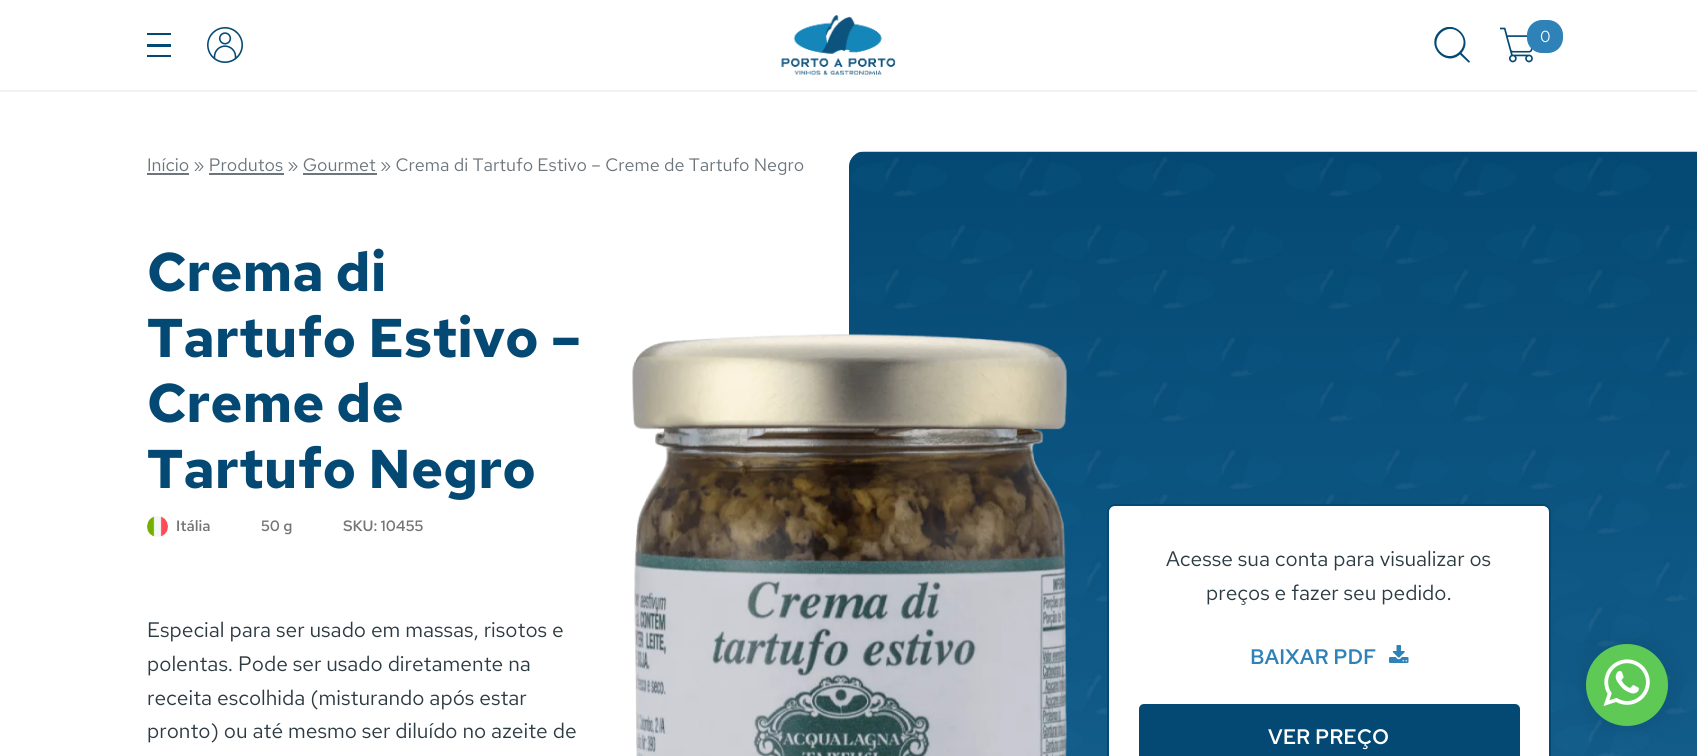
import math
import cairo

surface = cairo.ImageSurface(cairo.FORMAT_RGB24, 1697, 756)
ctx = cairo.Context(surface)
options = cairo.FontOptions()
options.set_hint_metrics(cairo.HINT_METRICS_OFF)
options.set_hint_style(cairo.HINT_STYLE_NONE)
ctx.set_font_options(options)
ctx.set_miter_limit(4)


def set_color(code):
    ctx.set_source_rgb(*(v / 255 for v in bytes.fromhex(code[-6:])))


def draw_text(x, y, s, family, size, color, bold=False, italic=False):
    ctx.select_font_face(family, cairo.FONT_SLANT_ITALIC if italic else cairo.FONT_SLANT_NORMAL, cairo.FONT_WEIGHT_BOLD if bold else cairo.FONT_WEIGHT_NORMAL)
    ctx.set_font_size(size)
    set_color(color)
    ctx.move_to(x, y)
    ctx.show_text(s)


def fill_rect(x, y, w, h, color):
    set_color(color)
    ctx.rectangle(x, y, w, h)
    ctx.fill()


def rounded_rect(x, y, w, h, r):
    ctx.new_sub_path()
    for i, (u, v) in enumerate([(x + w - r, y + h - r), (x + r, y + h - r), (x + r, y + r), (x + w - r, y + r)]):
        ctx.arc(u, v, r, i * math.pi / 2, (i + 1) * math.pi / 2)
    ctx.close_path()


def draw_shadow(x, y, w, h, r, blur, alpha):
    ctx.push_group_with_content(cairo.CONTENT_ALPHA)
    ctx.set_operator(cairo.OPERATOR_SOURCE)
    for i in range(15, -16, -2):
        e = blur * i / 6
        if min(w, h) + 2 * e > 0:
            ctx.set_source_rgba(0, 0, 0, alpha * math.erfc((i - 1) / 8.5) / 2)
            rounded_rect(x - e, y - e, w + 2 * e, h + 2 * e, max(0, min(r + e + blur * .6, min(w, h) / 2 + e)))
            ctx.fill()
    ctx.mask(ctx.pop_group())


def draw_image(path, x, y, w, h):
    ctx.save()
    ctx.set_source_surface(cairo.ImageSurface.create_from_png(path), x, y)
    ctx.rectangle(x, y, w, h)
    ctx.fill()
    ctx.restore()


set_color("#ffffff")
ctx.paint()
fill_rect(0, 90, 1697, 2, "#f1f1f1")
fill_rect(147, 33, 24, 2, "#044973")
fill_rect(147, 44, 24, 3, "#044973")
fill_rect(147, 55, 24, 2, "#044973")
draw_image("assets/img1.png", 207, 27, 36, 36)
draw_image("assets/img2.png", 781, 15, 115, 60)
ctx.save()
ctx.rectangle(1434, 27, 36, 36)
ctx.clip()
ctx.new_path()
ctx.move_to(1469.5, 61)
ctx.line_to(1461.5, 53)
ctx.curve_to(1474.5, 38, 1453, 17.5, 1439, 31.5)
ctx.curve_to(1425, 45.5, 1445, 67.5, 1460, 54.5)
ctx.line_to(1468.5, 62.5)
ctx.curve_to(1469.5, 63, 1470.5, 61.5, 1469.5, 61)
ctx.close_path()
ctx.move_to(1440.5, 52)
ctx.curve_to(1428, 39.5, 1447, 20.5, 1459.5, 33)
ctx.curve_to(1472, 45.5, 1453, 64.5, 1440.5, 52)
ctx.close_path()
ctx.fill()
ctx.restore()
draw_image("assets/img3.png", 1500, 27, 33, 36)
set_color("#2f82b8")
rounded_rect(1527, 20, 36, 33, 15)
ctx.fill()
draw_text(1540, 42, "0", "Red Hat Text", 16, "#ffffff")
draw_image("assets/img4.png", 849, 151, 848, 605)
fill_rect(147, 173, 42, 2, "#6b757b")
draw_text(147, 171, "Início » Produtos » Gourmet » Crema di Tartufo Estivo – Creme de Tartufo Negro", "Red Hat Text", 18, "#6b757b")
fill_rect(209, 173, 75, 2, "#6b757b")
fill_rect(303, 173, 74, 2, "#6b757b")
draw_text(147, 291, "Crema di", "Red Hat Text", 54.5, "#044973", bold=True)
draw_text(147, 357, "Tartufo Estivo –", "Red Hat Text", 54.5, "#044973", bold=True)
draw_text(147, 422, "Creme de", "Red Hat Text", 54.5, "#044973", bold=True)
draw_text(147, 488, "Tartufo Negro", "Red Hat Text", 54.5, "#044973", bold=True)
draw_image("assets/img5.png", 147, 516, 21, 21)
draw_text(176, 531, "Itália", "Red Hat Text SemiBold", 15, "#757575")
draw_text(261, 531, "50 g", "Red Hat Text SemiBold", 15, "#757575")
draw_text(343, 531, "SKU: 10455", "Red Hat Text SemiBold", 15, "#757575")
draw_text(147, 637, "Especial para ser usado em massas, risotos e", "Red Hat Text", 21, "#2c3a42")
draw_text(147, 671, "polentas. Pode ser usado diretamente na", "Red Hat Text", 21, "#2c3a42")
draw_text(147, 705, "receita escolhida (misturando após estar", "Red Hat Text", 21, "#2c3a42")
draw_text(147, 738, "pronto) ou até mesmo ser diluído no azeite de", "Red Hat Text", 21, "#2c3a42")
draw_image("assets/img6.png", 632, 333, 435, 423)
set_color("#ffffff")
rounded_rect(1108, 505, 442, 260, 7)
ctx.fill_preserve()
set_color("#044973")
ctx.stroke()
draw_text(1166, 566, "Acesse sua conta para visualizar os", "Red Hat Text", 21, "#2c3a42")
draw_text(1206, 600, "preços e fazer seu pedido.", "Red Hat Text", 21, "#2c3a42")
draw_text(1250, 664, "BAIXAR PDF", "Red Hat Text SemiBold", 21, "#2f82b8")
draw_image("assets/img7.png", 1389, 645, 20, 18)
set_color("#044973")
rounded_rect(1139, 704, 381, 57, 5)
ctx.fill()
draw_text(1268, 744, "VER PREÇO", "Red Hat Text SemiBold", 21, "#ffffff")
set_color("#000000")
draw_shadow(1586, 644, 82, 82, 41, 15, 0.1)
set_color("#5eca55")
ctx.arc(1627, 685, 41, 0, 2 * math.pi)
ctx.fill()
draw_image("assets/img8.png", 1603, 659, 47, 47)
surface.write_to_png("output.png")
